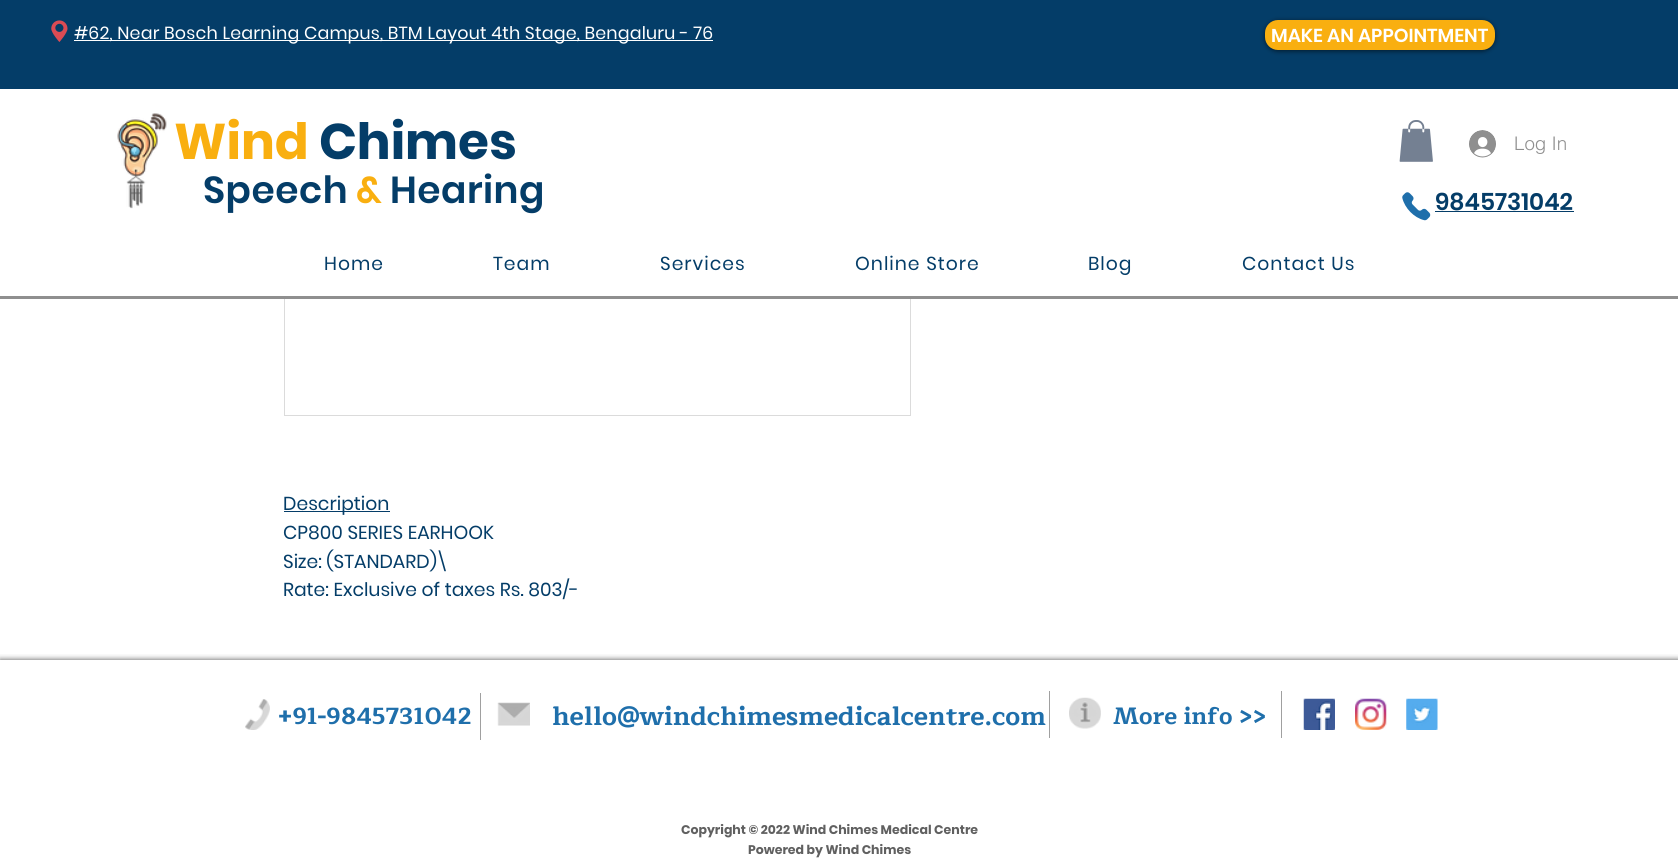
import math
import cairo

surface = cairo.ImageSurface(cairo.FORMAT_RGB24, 1678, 859)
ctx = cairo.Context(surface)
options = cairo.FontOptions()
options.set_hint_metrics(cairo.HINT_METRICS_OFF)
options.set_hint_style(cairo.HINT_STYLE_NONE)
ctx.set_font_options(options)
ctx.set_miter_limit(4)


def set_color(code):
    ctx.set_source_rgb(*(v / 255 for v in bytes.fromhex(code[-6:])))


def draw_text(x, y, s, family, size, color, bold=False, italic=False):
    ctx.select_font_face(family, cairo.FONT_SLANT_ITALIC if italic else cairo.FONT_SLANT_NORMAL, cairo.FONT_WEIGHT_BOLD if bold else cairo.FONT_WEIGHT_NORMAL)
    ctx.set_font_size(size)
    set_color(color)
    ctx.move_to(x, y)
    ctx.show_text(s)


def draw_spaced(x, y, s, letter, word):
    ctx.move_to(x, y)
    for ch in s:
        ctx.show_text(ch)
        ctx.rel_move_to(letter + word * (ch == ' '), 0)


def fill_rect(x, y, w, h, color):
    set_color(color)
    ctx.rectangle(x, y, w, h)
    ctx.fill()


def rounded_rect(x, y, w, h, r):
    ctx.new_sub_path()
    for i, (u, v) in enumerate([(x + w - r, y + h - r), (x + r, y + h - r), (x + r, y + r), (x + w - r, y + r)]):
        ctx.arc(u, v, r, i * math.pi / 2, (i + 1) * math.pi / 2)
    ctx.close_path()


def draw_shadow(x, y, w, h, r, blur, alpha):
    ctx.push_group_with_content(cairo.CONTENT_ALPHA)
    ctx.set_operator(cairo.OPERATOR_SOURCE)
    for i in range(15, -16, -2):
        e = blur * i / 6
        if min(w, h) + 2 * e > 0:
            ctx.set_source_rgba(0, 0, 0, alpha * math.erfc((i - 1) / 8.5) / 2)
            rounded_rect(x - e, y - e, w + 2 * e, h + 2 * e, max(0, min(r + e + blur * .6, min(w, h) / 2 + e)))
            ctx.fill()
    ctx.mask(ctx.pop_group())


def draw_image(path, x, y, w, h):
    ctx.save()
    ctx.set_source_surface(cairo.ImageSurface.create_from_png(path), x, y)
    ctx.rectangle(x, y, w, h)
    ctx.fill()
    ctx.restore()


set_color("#ffffff")
ctx.paint()
ctx.rectangle(284.5, -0.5, 626, 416)
set_color("#dbdbdb")
ctx.set_line_width(1)
ctx.stroke()
fill_rect(0, 0, 1678, 89, "#043d68")
draw_image("assets/img1.png", 51, 20, 17, 22)
fill_rect(74, 40, 639, 1, "#ffffff")
ctx.select_font_face("Poppins")
ctx.set_font_size(17.5)
draw_spaced(74, 39, "#62, Near Bosch Learning Campus, BTM Layout 4th Stage, Bengaluru - 76", 0.18, 0)
set_color("#000000")
draw_shadow(1265, 21, 230, 30, 13, 2.5, 0.6)
set_color("#f9af10")
rounded_rect(1265, 20, 230, 30, 13)
ctx.fill()
draw_text(1271, 42, "MAKE AN APPOINTMENT", "Poppins SemiBold", 18.75, "#ffffff")
draw_image("assets/img2.png", 117, 113, 50, 96)
fill_rect(284, 89, 627, 207, "#ffffff")
draw_text(174, 159, "Wind", "Poppins", 50, "#f9af10", bold=True)
draw_text(319, 159, "Chimes", "Poppins", 50, "#043d68", bold=True)
draw_image("assets/img3.png", 1399, 120, 34, 42)
draw_image("assets/img4.png", 1469, 130, 27, 28)
draw_text(1514, 150, "Log In", "helvetica Light", 18.75, "#8f8f8f")
ctx.select_font_face("Poppins SemiBold")
ctx.set_font_size(37.5)
set_color("#043d68")
draw_spaced(203, 203, "Speech", 0.5, 0)
set_color("#f9af10")
draw_spaced(356, 203, "&", 0.5, 0)
set_color("#043d68")
draw_spaced(390, 203, "Hearing", 0.5, 0)
draw_image("assets/img5.png", 1402, 192, 29, 29)
draw_text(1435, 210, "9845731042", "Poppins SemiBold", 23.75, "#043d68")
fill_rect(1435, 211, 139, 1, "#043d68")
ctx.select_font_face("Poppins")
ctx.set_font_size(18.75)
draw_spaced(324, 270, "Home", 1, 0)
draw_spaced(493, 270, "Team", 1, 0)
draw_spaced(660, 270, "Services", 1, 0)
draw_spaced(855, 270, "Online Store", 1, 0)
draw_spaced(1088, 270, "Blog", 1, 0)
draw_spaced(1242, 270, "Contact Us", 1, 0)
fill_rect(0, 296, 1678, 3, "#8f8f8f")
fill_rect(284, 511, 106, 1, "#043d68")
draw_text(283, 510, "Description", "Poppins", 18.75, "#043d68")
draw_text(283, 539, "CP800 SERIES EARHOOK", "Poppins", 18.75, "#043d68")
draw_text(283, 568, "Size: (STANDARD)\\", "Poppins", 18.75, "#043d68")
draw_text(283, 596, "Rate: Exclusive of taxes Rs. 803/-", "Poppins", 18.75, "#043d68")
ctx.save()
ctx.rectangle(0, 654, 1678, 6)
ctx.clip()
set_color("#000000")
draw_shadow(0, 660, 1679, 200, 0, 3, 0.7)
ctx.restore()
draw_image("assets/img6.png", 245, 699, 25, 31)
draw_text(278, 724, "+91-9845731042", "Maitree", 23.75, "#1f6fab", bold=True)
fill_rect(480, 693, 1, 47, "#a0a0a0")
draw_image("assets/img7.png", 497, 702, 33, 24)
draw_text(552, 725, "hello@windchimesmedicalcentre.com", "Maitree", 26.25, "#1f6fab", bold=True)
fill_rect(1049, 691, 1, 47, "#a0a0a0")
draw_image("assets/img8.png", 1069, 697, 32, 32)
draw_text(1113, 724, "More info >>", "Maitree", 23.75, "#1f6fab", bold=True)
fill_rect(1281, 691, 1, 47, "#a0a0a0")
draw_image("assets/img9.png", 1303, 698, 32, 32)
draw_image("assets/img10.png", 1355, 698, 32, 32)
draw_image("assets/img11.png", 1406, 698, 32, 32)
draw_text(681, 834, "Copyright © 2022 Wind Chimes Medical Centre", "Poppins", 12.5, "#606060", bold=True)
draw_text(748, 854, "Powered by Wind Chimes", "Poppins", 12.5, "#606060", bold=True)
surface.write_to_png("output.png")
